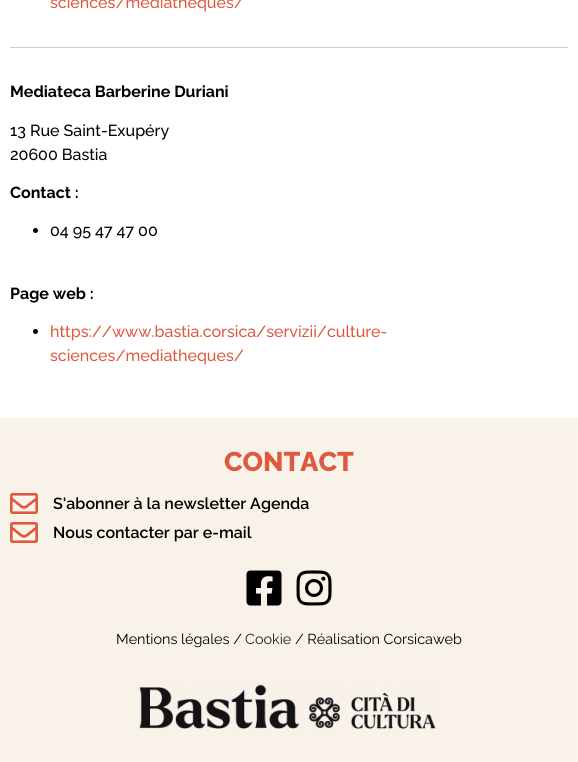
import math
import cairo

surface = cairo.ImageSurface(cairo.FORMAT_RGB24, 578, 762)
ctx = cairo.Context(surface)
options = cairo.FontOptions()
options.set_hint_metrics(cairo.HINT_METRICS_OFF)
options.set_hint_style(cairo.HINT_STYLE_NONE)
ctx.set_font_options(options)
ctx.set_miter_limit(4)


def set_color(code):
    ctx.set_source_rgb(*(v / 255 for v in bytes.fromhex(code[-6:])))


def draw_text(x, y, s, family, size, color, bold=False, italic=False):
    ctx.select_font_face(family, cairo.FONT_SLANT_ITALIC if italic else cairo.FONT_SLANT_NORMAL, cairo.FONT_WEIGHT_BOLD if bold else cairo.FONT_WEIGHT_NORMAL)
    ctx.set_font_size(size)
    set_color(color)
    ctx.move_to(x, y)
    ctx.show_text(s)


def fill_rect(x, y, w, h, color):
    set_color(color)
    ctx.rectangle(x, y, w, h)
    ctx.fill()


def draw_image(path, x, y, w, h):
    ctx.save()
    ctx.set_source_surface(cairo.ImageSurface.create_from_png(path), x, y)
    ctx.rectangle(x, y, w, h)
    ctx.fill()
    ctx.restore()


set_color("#ffffff")
ctx.paint()
draw_text(50, 8, "sciences/mediatheques/", "Raleway Medium", 16, "#dd593f")
fill_rect(10, 47, 558, 1, "#cccccc")
draw_text(10, 97, "Mediateca Barberine Duriani", "Raleway", 16, "#000000", bold=True)
draw_text(10, 136, "13 Rue Saint-Exupéry", "Raleway Medium", 16, "#000000")
draw_text(10, 160, "20600 Bastia", "Raleway Medium", 16, "#000000")
draw_text(10, 198, "Contact :", "Raleway", 16, "#000000", bold=True)
ctx.new_path()
ctx.arc(35.5, 230.5, 2.5, 0, 2 * math.pi)
ctx.fill()
draw_text(50, 236, "04 95 47 47 00", "Raleway Medium", 16, "#000000")
draw_text(10, 299, "Page web :", "Raleway", 16, "#000000", bold=True)
ctx.new_path()
ctx.arc(35.5, 331.5, 2.5, 0, 2 * math.pi)
ctx.fill()
draw_text(50, 337, "https://www.bastia.corsica/servizii/culture-", "Raleway Medium", 16, "#dd593f")
draw_text(50, 361, "sciences/mediatheques/", "Raleway Medium", 16, "#dd593f")
fill_rect(0, 418, 578, 344, "#f9f2e9")
draw_text(224, 471, "CONTACT", "Raleway ExtraBold", 27, "#dd593f")
draw_image("assets/img1.png", 10, 493, 28, 21)
draw_text(53, 509, "S'abonner à la newsletter Agenda", "Raleway SemiBold", 16, "#000000")
draw_image("assets/img1.png", 10, 522, 28, 21)
draw_text(53, 538, "Nous contacter par e-mail", "Raleway SemiBold", 16, "#000000")
draw_image("assets/img2.png", 246, 570, 36, 36)
draw_image("assets/img3.png", 296, 570, 36, 36)
draw_text(116, 644, "Mentions légales /", "Raleway", 14.4, "#000000")
draw_text(245, 644, "Cookie", "Raleway", 14.4, "#212121")
draw_text(295, 644, "/ Réalisation Corsicaweb", "Raleway", 14.4, "#000000")
draw_image("assets/img4.png", 139, 684, 297, 45)
surface.write_to_png("output.png")
